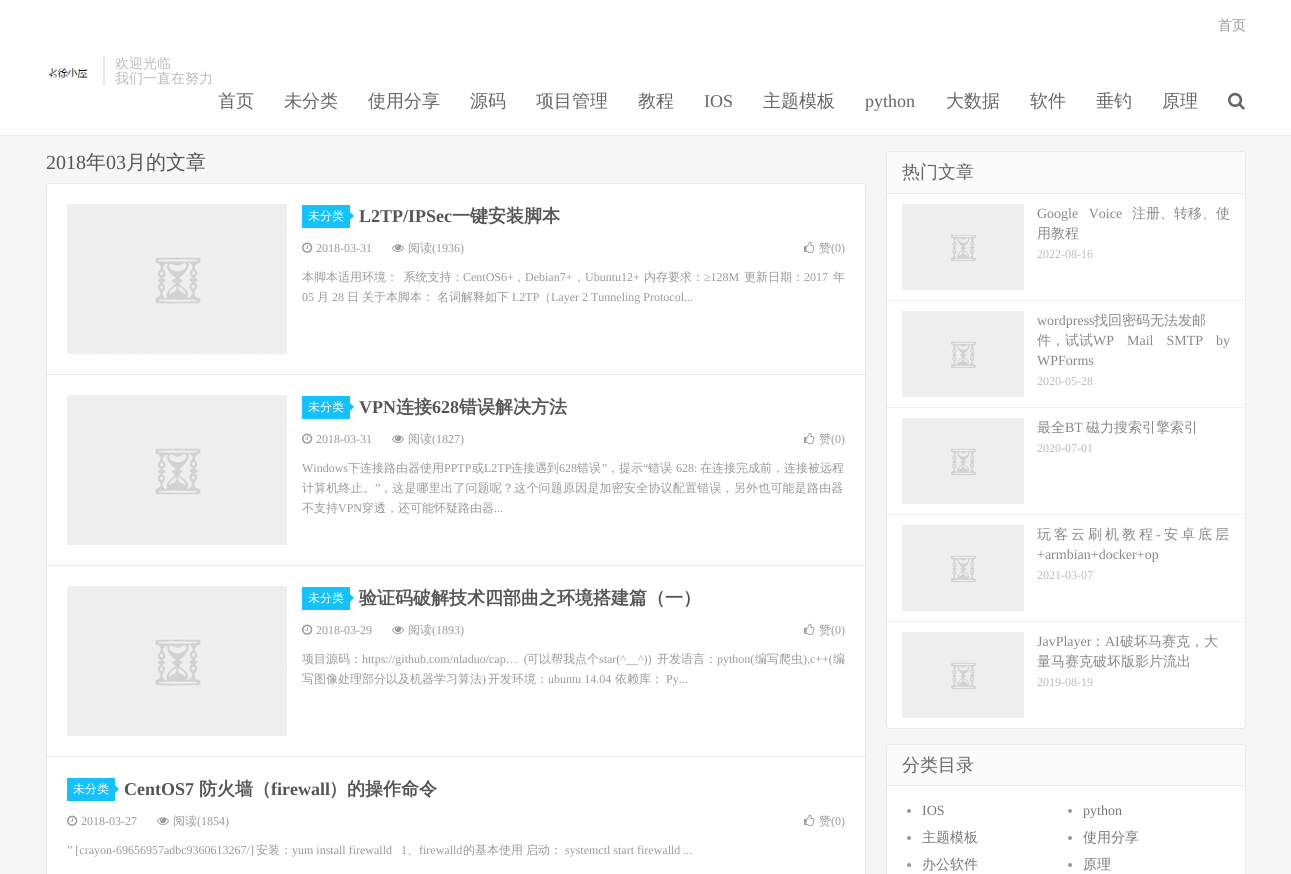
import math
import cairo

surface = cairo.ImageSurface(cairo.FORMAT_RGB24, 1291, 874)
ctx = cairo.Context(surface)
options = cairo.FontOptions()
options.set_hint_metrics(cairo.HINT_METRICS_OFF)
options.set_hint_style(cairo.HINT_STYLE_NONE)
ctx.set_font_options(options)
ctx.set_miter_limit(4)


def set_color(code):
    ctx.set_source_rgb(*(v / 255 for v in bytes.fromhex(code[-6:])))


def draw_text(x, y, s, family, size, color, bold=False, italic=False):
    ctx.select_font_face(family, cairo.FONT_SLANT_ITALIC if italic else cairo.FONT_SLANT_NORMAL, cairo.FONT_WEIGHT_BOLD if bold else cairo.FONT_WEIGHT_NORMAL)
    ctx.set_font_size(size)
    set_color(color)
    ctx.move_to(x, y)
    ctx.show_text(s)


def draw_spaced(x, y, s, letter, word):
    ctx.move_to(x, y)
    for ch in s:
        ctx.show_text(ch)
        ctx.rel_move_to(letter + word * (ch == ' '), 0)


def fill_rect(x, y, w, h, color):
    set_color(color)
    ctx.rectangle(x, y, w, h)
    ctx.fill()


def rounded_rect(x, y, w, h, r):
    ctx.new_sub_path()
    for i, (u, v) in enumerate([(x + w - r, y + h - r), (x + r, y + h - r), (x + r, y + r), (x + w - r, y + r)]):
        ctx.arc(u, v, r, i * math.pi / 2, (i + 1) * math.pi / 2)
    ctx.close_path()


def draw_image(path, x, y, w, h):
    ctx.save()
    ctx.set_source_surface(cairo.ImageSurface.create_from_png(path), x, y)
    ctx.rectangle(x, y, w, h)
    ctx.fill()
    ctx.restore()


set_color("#f6f6f6")
ctx.paint()
fill_rect(0, 0, 1291, 135, "#ffffff")
fill_rect(0, 135, 1291, 1, "#ebebeb")
draw_text(1218, 30, "首页", "WenQuanYi Zen Hei Medium", 14, "#999999")
draw_image("assets/img1.png", 48, 68, 40, 11)
fill_rect(103, 56, 2, 30, "#eaeaea")
draw_text(115, 68, "欢迎光临", "WenQuanYi Zen Hei Medium", 14, "#bbbbbb")
draw_text(115, 83, "我们一直在努力", "WenQuanYi Zen Hei Medium", 14, "#bbbbbb")
draw_text(218, 107, "首页", "WenQuanYi Zen Hei Medium", 18, "#666666")
draw_text(284, 107, "未分类", "WenQuanYi Zen Hei Medium", 18, "#666666")
draw_text(368, 107, "使用分享", "WenQuanYi Zen Hei Medium", 18, "#666666")
draw_text(470, 107, "源码", "WenQuanYi Zen Hei Medium", 18, "#666666")
draw_text(536, 107, "项目管理", "WenQuanYi Zen Hei Medium", 18, "#666666")
draw_text(638, 107, "教程", "WenQuanYi Zen Hei Medium", 18, "#666666")
draw_text(704, 107, "IOS", "Liberation Serif", 18, "#666666")
draw_text(763, 107, "主题模板", "WenQuanYi Zen Hei Medium", 18, "#666666")
draw_text(865, 107, "python", "Liberation Serif", 18, "#666666")
draw_text(946, 107, "大数据", "WenQuanYi Zen Hei Medium", 18, "#666666")
draw_text(1030, 107, "软件", "WenQuanYi Zen Hei Medium", 18, "#666666")
draw_text(1096, 107, "垂钓", "WenQuanYi Zen Hei Medium", 18, "#666666")
draw_text(1162, 107, "原理", "WenQuanYi Zen Hei Medium", 18, "#666666")
draw_image("assets/img2.png", 1228, 92, 17, 18)
draw_text(46, 169, "2018", "Liberation Serif", 20, "#555555")
draw_text(86, 169, "年", "WenQuanYi Zen Hei Medium", 20, "#555555")
draw_text(106, 169, "03", "Liberation Serif", 20, "#555555")
draw_text(126, 169, "月的文章", "WenQuanYi Zen Hei Medium", 20, "#555555")
set_color("#ffffff")
ctx.new_path()
ctx.move_to(50, 183.5)
ctx.line_to(862, 183.5)
ctx.curve_to(864, 183.5, 865.5, 185, 865.5, 187)
ctx.line_to(865.5, 374.5)
ctx.line_to(46.5, 374.5)
ctx.line_to(46.5, 187)
ctx.curve_to(46.5, 185, 48, 183.5, 50, 183.5)
ctx.close_path()
ctx.fill_preserve()
set_color("#eaeaea")
ctx.set_line_width(1)
ctx.stroke()
draw_image("assets/img3.png", 67, 204, 220, 150)
fill_rect(302, 205, 48, 23, "#16c0f8")
draw_text(308, 220, "未分类", "WenQuanYi Zen Hei Medium", 12, "#ffffff")
set_color("#16c0f8")
ctx.new_path()
ctx.move_to(350, 220)
ctx.line_to(350, 212)
ctx.line_to(354, 216)
ctx.close_path()
ctx.fill()
draw_text(359, 222, "L2TP/IPSec", "Liberation Serif", 18, "#555555", bold=True)
draw_text(452, 222, "一键安装脚本", "WenQuanYi Zen Hei", 18, "#555555", bold=True)
draw_image("assets/img4.png", 302, 242, 11, 11)
draw_text(316, 252, "2018-03-31", "Liberation Serif", 12, "#999999")
draw_image("assets/img5.png", 392, 244, 12, 8)
draw_text(408, 252, "阅读", "WenQuanYi Zen Hei Medium", 12, "#999999")
draw_text(432, 252, "(1936)", "Liberation Serif", 12, "#999999")
draw_image("assets/img6.png", 804, 241, 11, 12)
draw_text(819, 252, "赞", "WenQuanYi Zen Hei Medium", 12, "#999999")
draw_text(831, 252, "(0)", "Liberation Serif", 12, "#999999")
ctx.select_font_face("WenQuanYi Zen Hei Medium")
draw_spaced(302, 281, "本脚本适用环境： 系统支持：", 0, 2)
draw_text(463, 281, "CentOS6+", "Liberation Serif", 12, "#999999")
draw_text(513, 281, "，", "WenQuanYi Zen Hei Medium", 12, "#999999")
draw_text(525, 281, "Debian7+", "Liberation Serif", 12, "#999999")
draw_text(573, 281, "，", "WenQuanYi Zen Hei Medium", 12, "#999999")
draw_text(585, 281, "Ubuntu12+", "Liberation Serif", 12, "#999999")
draw_text(644, 281, "内存要求：", "WenQuanYi Zen Hei Medium", 12, "#999999")
draw_text(704, 281, "≥128M", "Liberation Serif", 12, "#999999")
draw_text(744, 281, "更新日期：", "WenQuanYi Zen Hei Medium", 12, "#999999")
draw_text(804, 281, "2017", "Liberation Serif", 12, "#999999")
draw_text(833, 281, "年", "WenQuanYi Zen Hei Medium", 12, "#999999")
draw_text(302, 301, "05", "Liberation Serif", 12, "#999999")
draw_text(317, 301, "月", "WenQuanYi Zen Hei Medium", 12, "#999999")
draw_text(332, 301, "28", "Liberation Serif", 12, "#999999")
draw_text(347, 301, "日", "WenQuanYi Zen Hei Medium", 12, "#999999")
draw_text(362, 301, "关于本脚本：", "WenQuanYi Zen Hei Medium", 12, "#999999")
draw_text(437, 301, "名词解释如下", "WenQuanYi Zen Hei Medium", 12, "#999999")
draw_text(512, 301, "L2TP", "Liberation Serif", 12, "#999999")
draw_text(539, 301, "（", "WenQuanYi Zen Hei Medium", 12, "#999999")
draw_text(551, 301, "Layer 2 Tunneling Protocol...", "Liberation Serif", 12, "#999999")
set_color("#ffffff")
ctx.rectangle(46.5, 374.5, 819, 191)
ctx.fill_preserve()
set_color("#eaeaea")
ctx.stroke()
draw_image("assets/img3.png", 67, 395, 220, 150)
fill_rect(302, 396, 48, 23, "#16c0f8")
draw_text(308, 411, "未分类", "WenQuanYi Zen Hei Medium", 12, "#ffffff")
set_color("#16c0f8")
ctx.new_path()
ctx.move_to(350, 411)
ctx.line_to(350, 403)
ctx.line_to(354, 407)
ctx.close_path()
ctx.fill()
draw_text(359, 413, "VPN", "Liberation Serif", 18, "#555555", bold=True)
draw_text(396, 413, "连接", "WenQuanYi Zen Hei", 18, "#555555", bold=True)
draw_text(432, 413, "628", "Liberation Serif", 18, "#555555", bold=True)
draw_text(459, 413, "错误解决方法", "WenQuanYi Zen Hei", 18, "#555555", bold=True)
draw_image("assets/img4.png", 302, 433, 11, 11)
draw_text(316, 443, "2018-03-31", "Liberation Serif", 12, "#999999")
draw_image("assets/img5.png", 392, 435, 12, 8)
draw_text(408, 443, "阅读", "WenQuanYi Zen Hei Medium", 12, "#999999")
draw_text(432, 443, "(1827)", "Liberation Serif", 12, "#999999")
draw_image("assets/img6.png", 804, 432, 11, 12)
draw_text(819, 443, "赞", "WenQuanYi Zen Hei Medium", 12, "#999999")
draw_text(831, 443, "(0)", "Liberation Serif", 12, "#999999")
draw_text(302, 472, "Windows", "Liberation Serif", 12, "#999999")
draw_text(348, 472, "下连接路由器使用", "WenQuanYi Zen Hei Medium", 12, "#999999")
draw_text(444, 472, "PPTP", "Liberation Serif", 12, "#999999")
draw_text(472, 472, "或", "WenQuanYi Zen Hei Medium", 12, "#999999")
draw_text(484, 472, "L2TP", "Liberation Serif", 12, "#999999")
draw_text(511, 472, "连接遇到", "WenQuanYi Zen Hei Medium", 12, "#999999")
draw_text(559, 472, "628", "Liberation Serif", 12, "#999999")
draw_text(577, 472, "错误", "WenQuanYi Zen Hei Medium", 12, "#999999")
draw_text(602, 472, "”", "Liberation Serif", 12, "#999999")
draw_text(607, 472, "，提示", "WenQuanYi Zen Hei Medium", 12, "#999999")
draw_text(643, 472, "“", "Liberation Serif", 12, "#999999")
draw_text(648, 472, "错误", "WenQuanYi Zen Hei Medium", 12, "#999999")
draw_text(676, 472, "628:", "Liberation Serif", 12, "#999999")
draw_text(700, 472, "在连接完成前，连接被远程", "WenQuanYi Zen Hei Medium", 12, "#999999")
draw_spaced(302, 492, "计算机终止。", 0.2, 0)
ctx.select_font_face("Liberation Serif")
draw_spaced(375, 492, "”", 0.2, 0)
ctx.select_font_face("WenQuanYi Zen Hei Medium")
draw_spaced(380, 492, "，这是哪里出了问题呢？这个问题原因是加密安全协议配置错误，另外也可能是路由器", 0.2, 0)
draw_text(302, 512, "不支持", "WenQuanYi Zen Hei Medium", 12, "#999999")
draw_text(338, 512, "VPN", "Liberation Serif", 12, "#999999")
draw_text(362, 512, "穿透，还可能怀疑路由器", "WenQuanYi Zen Hei Medium", 12, "#999999")
draw_text(494, 512, "...", "Liberation Serif", 12, "#999999")
set_color("#ffffff")
ctx.rectangle(46.5, 565.5, 819, 191)
ctx.fill_preserve()
set_color("#eaeaea")
ctx.stroke()
draw_image("assets/img3.png", 67, 586, 220, 150)
fill_rect(302, 587, 48, 23, "#16c0f8")
draw_text(308, 602, "未分类", "WenQuanYi Zen Hei Medium", 12, "#ffffff")
set_color("#16c0f8")
ctx.new_path()
ctx.move_to(350, 602)
ctx.line_to(350, 594)
ctx.line_to(354, 598)
ctx.close_path()
ctx.fill()
draw_text(359, 604, "验证码破解技术四部曲之环境搭建篇（一）", "WenQuanYi Zen Hei", 18, "#555555", bold=True)
draw_image("assets/img4.png", 302, 624, 11, 11)
draw_text(316, 634, "2018-03-29", "Liberation Serif", 12, "#999999")
draw_image("assets/img5.png", 392, 626, 12, 8)
draw_text(408, 634, "阅读", "WenQuanYi Zen Hei Medium", 12, "#999999")
draw_text(432, 634, "(1893)", "Liberation Serif", 12, "#999999")
draw_image("assets/img6.png", 804, 623, 11, 12)
draw_text(819, 634, "赞", "WenQuanYi Zen Hei Medium", 12, "#999999")
draw_text(831, 634, "(0)", "Liberation Serif", 12, "#999999")
draw_text(302, 663, "项目源码：", "WenQuanYi Zen Hei Medium", 12, "#999999")
ctx.select_font_face("Liberation Serif")
draw_spaced(362, 663, "https://github.com/nladuo/cap… (", 0, 3)
draw_text(527, 663, "可以帮我点个", "WenQuanYi Zen Hei Medium", 12, "#999999")
draw_text(599, 663, "star(^__^))", "Liberation Serif", 12, "#999999")
draw_text(657, 663, "开发语言：", "WenQuanYi Zen Hei Medium", 12, "#999999")
draw_text(717, 663, "python(", "Liberation Serif", 12, "#999999")
draw_text(755, 663, "编写爬虫", "WenQuanYi Zen Hei Medium", 12, "#999999")
draw_text(803, 663, "),c++(", "Liberation Serif", 12, "#999999")
draw_text(833, 663, "编", "WenQuanYi Zen Hei Medium", 12, "#999999")
draw_text(302, 683, "写图像处理部分以及机器学习算法", "WenQuanYi Zen Hei Medium", 12, "#999999")
draw_text(482, 683, ")", "Liberation Serif", 12, "#999999")
draw_text(488, 683, "开发环境：", "WenQuanYi Zen Hei Medium", 12, "#999999")
draw_text(548, 683, "ubuntu 14.04", "Liberation Serif", 12, "#999999")
draw_text(615, 683, "依赖库：", "WenQuanYi Zen Hei Medium", 12, "#999999")
draw_text(666, 683, "Py...", "Liberation Serif", 12, "#999999")
set_color("#ffffff")
ctx.rectangle(46.5, 756.5, 819, 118)
ctx.fill_preserve()
set_color("#eaeaea")
ctx.stroke()
fill_rect(67, 778, 48, 23, "#16c0f8")
draw_text(73, 793, "未分类", "WenQuanYi Zen Hei Medium", 12, "#ffffff")
set_color("#16c0f8")
ctx.new_path()
ctx.move_to(115, 793)
ctx.line_to(115, 785)
ctx.line_to(119, 789)
ctx.close_path()
ctx.fill()
draw_text(124, 795, "CentOS7", "Liberation Serif", 18, "#555555", bold=True)
draw_text(199, 795, "防火墙（", "WenQuanYi Zen Hei", 18, "#555555", bold=True)
draw_text(271, 795, "firewall", "Liberation Serif", 18, "#555555", bold=True)
draw_text(329, 795, "）的操作命令", "WenQuanYi Zen Hei", 18, "#555555", bold=True)
draw_image("assets/img4.png", 67, 815, 11, 11)
draw_text(81, 825, "2018-03-27", "Liberation Serif", 12, "#999999")
draw_image("assets/img5.png", 157, 817, 12, 8)
draw_text(173, 825, "阅读", "WenQuanYi Zen Hei Medium", 12, "#999999")
draw_text(197, 825, "(1854)", "Liberation Serif", 12, "#999999")
draw_image("assets/img6.png", 804, 814, 11, 12)
draw_text(819, 825, "赞", "WenQuanYi Zen Hei Medium", 12, "#999999")
draw_text(831, 825, "(0)", "Liberation Serif", 12, "#999999")
draw_text(67, 854, "” [crayon-69656957adbc9360613267/]", "Liberation Serif", 12, "#999999")
draw_text(256, 854, "安装：", "WenQuanYi Zen Hei Medium", 12, "#999999")
draw_text(292, 854, "yum install firewalld   1", "Liberation Serif", 12, "#999999")
draw_text(407, 854, "、", "WenQuanYi Zen Hei Medium", 12, "#999999")
draw_text(419, 854, "firewalld", "Liberation Serif", 12, "#999999")
draw_text(463, 854, "的基本使用", "WenQuanYi Zen Hei Medium", 12, "#999999")
draw_text(526, 854, "启动：", "WenQuanYi Zen Hei Medium", 12, "#999999")
draw_text(565, 854, "systemctl start firewalld ...", "Liberation Serif", 12, "#999999")
set_color("#ffffff")
rounded_rect(886.5, 151.5, 359, 577, 3.5)
ctx.fill_preserve()
set_color("#eaeaea")
ctx.stroke()
set_color("#fbfbfb")
ctx.new_path()
ctx.move_to(890, 152)
ctx.line_to(1242, 152)
ctx.curve_to(1243.5, 152, 1245, 153.5, 1245, 155)
ctx.line_to(1245, 194)
ctx.line_to(887, 194)
ctx.line_to(887, 155)
ctx.curve_to(887, 153.5, 888.5, 152, 890, 152)
ctx.close_path()
ctx.fill()
fill_rect(887, 193, 358, 1, "#eaeaea")
draw_text(902, 178, "热门文章", "WenQuanYi Zen Hei Medium", 18, "#666666")
fill_rect(887, 300, 358, 1, "#eeeeee")
draw_image("assets/img7.png", 902, 204, 122, 86)
ctx.select_font_face("Liberation Serif")
ctx.set_font_size(14)
set_color("#888888")
draw_spaced(1037, 218, "Google Voice", 0, 7)
draw_text(1132, 218, "注册、转移、使", "WenQuanYi Zen Hei Medium", 14, "#888888")
draw_text(1037, 238, "用教程", "WenQuanYi Zen Hei Medium", 14, "#888888")
draw_text(1037, 258, "2022-08-16", "Liberation Serif", 12, "#bbbbbb")
fill_rect(887, 407, 358, 1, "#eeeeee")
draw_image("assets/img7.png", 902, 311, 122, 86)
draw_text(1037, 325, "wordpress", "Liberation Serif", 14, "#888888")
draw_text(1094, 325, "找回密码无法发邮", "WenQuanYi Zen Hei Medium", 14, "#888888")
draw_text(1037, 345, "件，试试", "WenQuanYi Zen Hei Medium", 14, "#888888")
ctx.select_font_face("Liberation Serif")
draw_spaced(1093, 345, "WP Mail SMTP by", 0, 9.5)
draw_text(1037, 365, "WPForms", "Liberation Serif", 14, "#888888")
draw_text(1037, 385, "2020-05-28", "Liberation Serif", 12, "#bbbbbb")
fill_rect(887, 514, 358, 1, "#eeeeee")
draw_image("assets/img7.png", 902, 418, 122, 86)
draw_text(1037, 432, "最全", "WenQuanYi Zen Hei Medium", 14, "#888888")
draw_text(1065, 432, "BT", "Liberation Serif", 14, "#888888")
draw_text(1086, 432, "磁力搜索引擎索引", "WenQuanYi Zen Hei Medium", 14, "#888888")
draw_text(1037, 452, "2020-07-01", "Liberation Serif", 12, "#bbbbbb")
fill_rect(887, 621, 358, 1, "#eeeeee")
draw_image("assets/img7.png", 902, 525, 122, 86)
ctx.select_font_face("WenQuanYi Zen Hei Medium")
ctx.set_font_size(14)
set_color("#888888")
draw_spaced(1037, 539, "玩客云刷机教程", 3, 0)
ctx.select_font_face("Liberation Serif")
draw_spaced(1156, 539, "-", 3, 0)
ctx.select_font_face("WenQuanYi Zen Hei Medium")
draw_spaced(1164, 539, "安卓底层", 3, 0)
draw_text(1037, 559, "+armbian+docker+op", "Liberation Serif", 14, "#888888")
draw_text(1037, 579, "2021-03-07", "Liberation Serif", 12, "#bbbbbb")
draw_image("assets/img7.png", 902, 632, 122, 86)
draw_text(1037, 646, "JavPlayer", "Liberation Serif", 14, "#888888")
draw_text(1091, 646, "：", "WenQuanYi Zen Hei Medium", 14, "#888888")
draw_text(1105, 646, "AI", "Liberation Serif", 14, "#888888")
draw_text(1120, 646, "破坏马赛克，大", "WenQuanYi Zen Hei Medium", 14, "#888888")
draw_text(1037, 666, "量马赛克破坏版影片流出", "WenQuanYi Zen Hei Medium", 14, "#888888")
draw_text(1037, 686, "2019-08-19", "Liberation Serif", 12, "#bbbbbb")
set_color("#ffffff")
rounded_rect(886.5, 744.5, 359, 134, 3.5)
ctx.fill_preserve()
set_color("#eaeaea")
ctx.stroke()
set_color("#fbfbfb")
ctx.new_path()
ctx.move_to(890, 745)
ctx.line_to(1242, 745)
ctx.curve_to(1243.5, 745, 1245, 746.5, 1245, 748)
ctx.line_to(1245, 786)
ctx.line_to(887, 786)
ctx.line_to(887, 748)
ctx.curve_to(887, 746.5, 888.5, 745, 890, 745)
ctx.close_path()
ctx.fill()
fill_rect(887, 785, 358, 1, "#eaeaea")
draw_text(902, 771, "分类目录", "WenQuanYi Zen Hei Medium", 18, "#666666")
set_color("#999999")
ctx.new_path()
ctx.arc(909, 811, 2, 0, 2 * math.pi)
ctx.fill()
draw_text(922, 815, "IOS", "Liberation Serif", 14, "#777777")
set_color("#999999")
ctx.new_path()
ctx.arc(1070, 811, 2, 0, 2 * math.pi)
ctx.fill()
draw_text(1083, 815, "python", "Liberation Serif", 14, "#777777")
set_color("#999999")
ctx.new_path()
ctx.arc(909, 838, 2, 0, 2 * math.pi)
ctx.fill()
draw_text(922, 842, "主题模板", "WenQuanYi Zen Hei Medium", 14, "#777777")
set_color("#999999")
ctx.new_path()
ctx.arc(1070, 838, 2, 0, 2 * math.pi)
ctx.fill()
draw_text(1083, 842, "使用分享", "WenQuanYi Zen Hei Medium", 14, "#777777")
set_color("#999999")
ctx.new_path()
ctx.arc(909, 865, 2, 0, 2 * math.pi)
ctx.fill()
draw_text(922, 869, "办公软件", "WenQuanYi Zen Hei Medium", 14, "#777777")
set_color("#999999")
ctx.new_path()
ctx.arc(1070, 865, 2, 0, 2 * math.pi)
ctx.fill()
draw_text(1083, 869, "原理", "WenQuanYi Zen Hei Medium", 14, "#777777")
surface.write_to_png("output.png")
